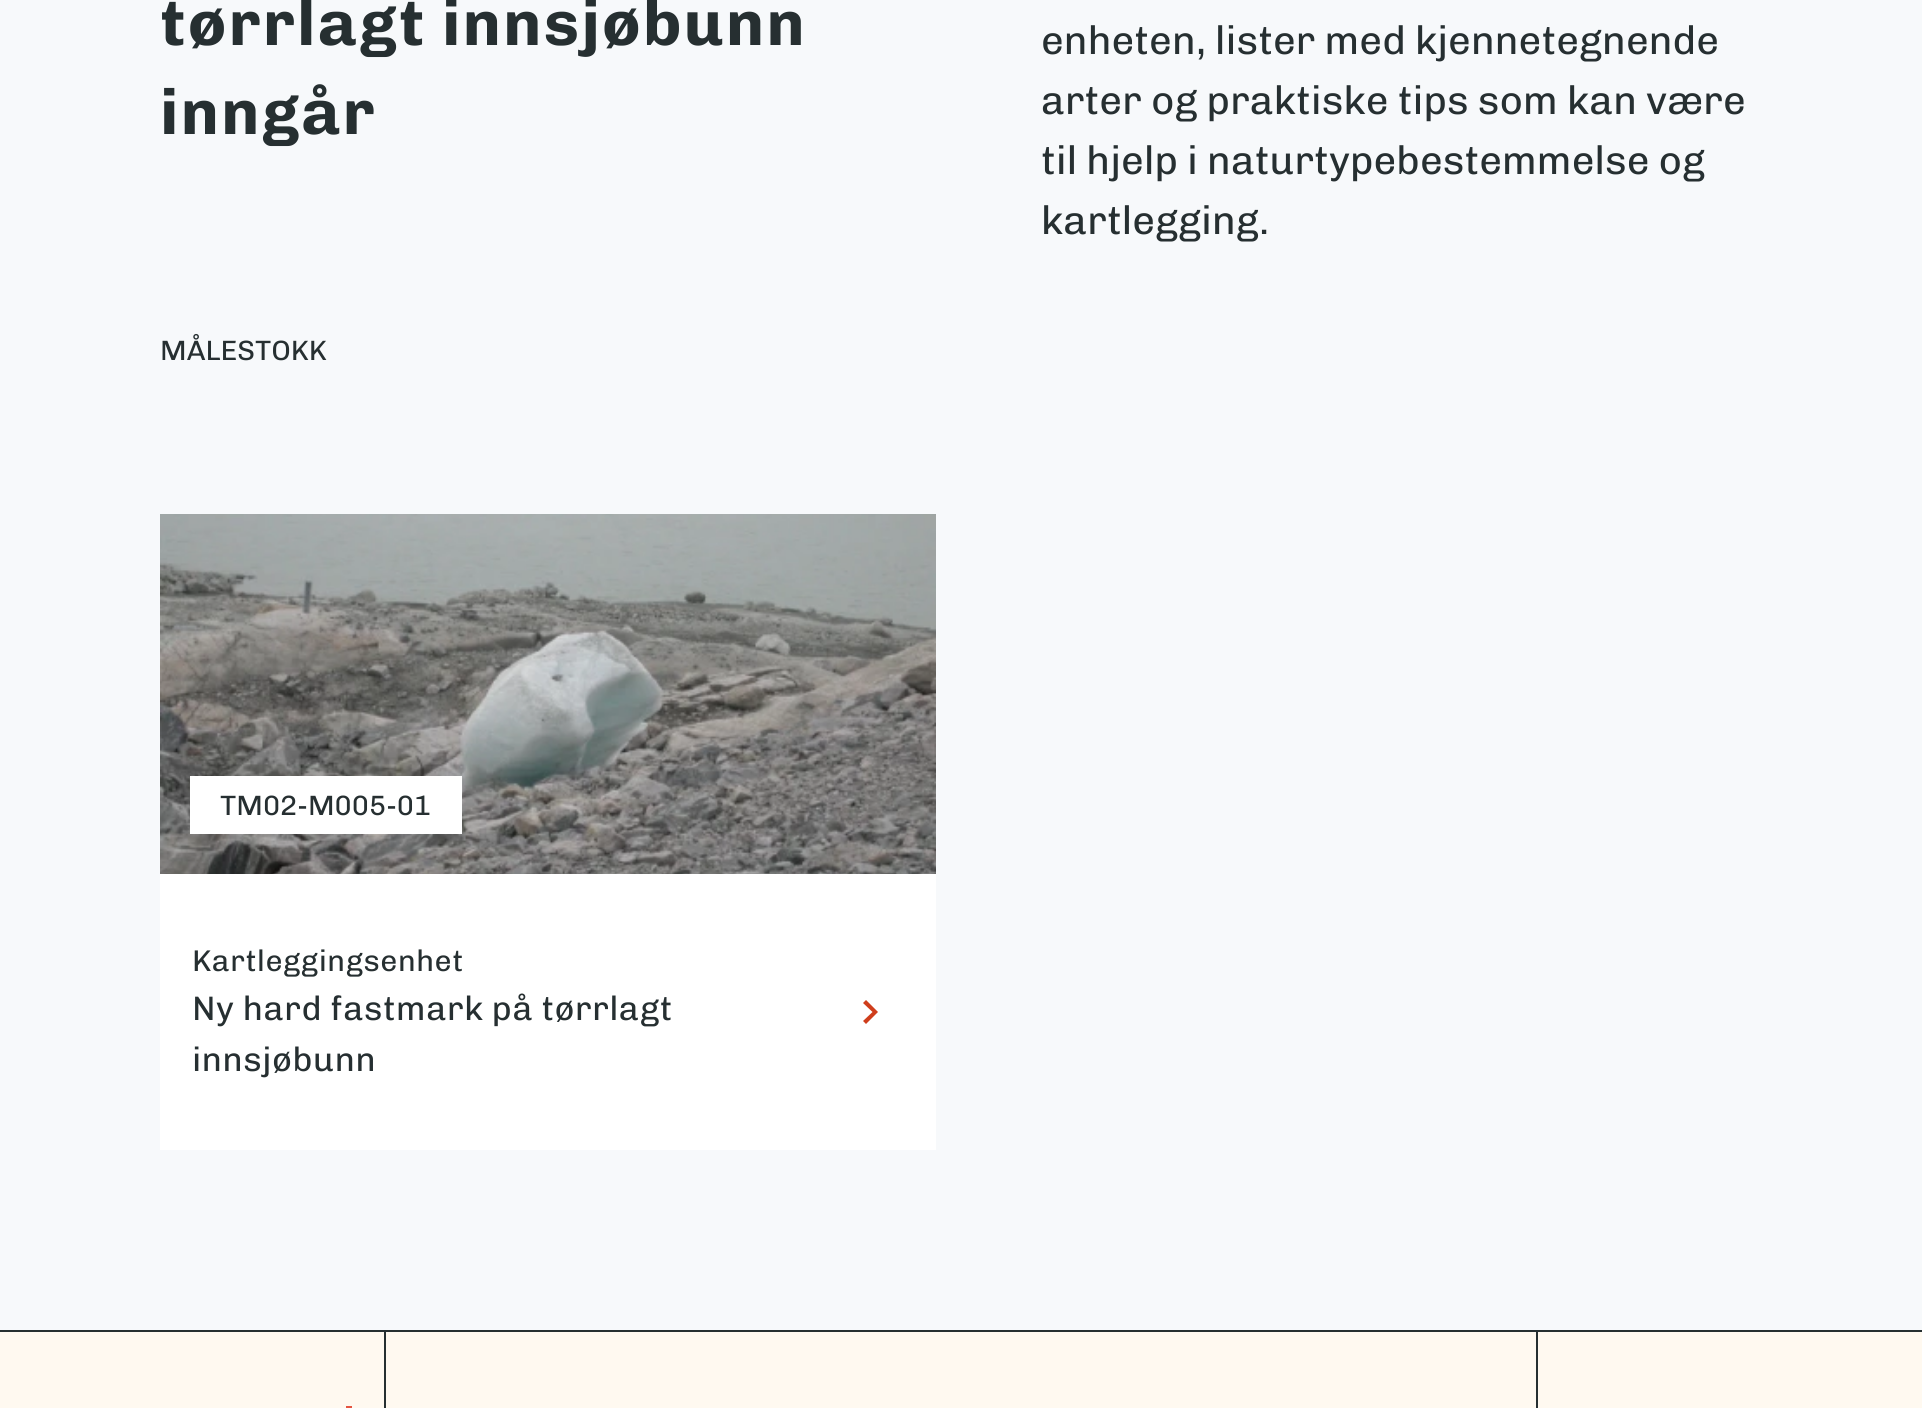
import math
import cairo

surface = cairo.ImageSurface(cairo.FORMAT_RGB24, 1922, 1408)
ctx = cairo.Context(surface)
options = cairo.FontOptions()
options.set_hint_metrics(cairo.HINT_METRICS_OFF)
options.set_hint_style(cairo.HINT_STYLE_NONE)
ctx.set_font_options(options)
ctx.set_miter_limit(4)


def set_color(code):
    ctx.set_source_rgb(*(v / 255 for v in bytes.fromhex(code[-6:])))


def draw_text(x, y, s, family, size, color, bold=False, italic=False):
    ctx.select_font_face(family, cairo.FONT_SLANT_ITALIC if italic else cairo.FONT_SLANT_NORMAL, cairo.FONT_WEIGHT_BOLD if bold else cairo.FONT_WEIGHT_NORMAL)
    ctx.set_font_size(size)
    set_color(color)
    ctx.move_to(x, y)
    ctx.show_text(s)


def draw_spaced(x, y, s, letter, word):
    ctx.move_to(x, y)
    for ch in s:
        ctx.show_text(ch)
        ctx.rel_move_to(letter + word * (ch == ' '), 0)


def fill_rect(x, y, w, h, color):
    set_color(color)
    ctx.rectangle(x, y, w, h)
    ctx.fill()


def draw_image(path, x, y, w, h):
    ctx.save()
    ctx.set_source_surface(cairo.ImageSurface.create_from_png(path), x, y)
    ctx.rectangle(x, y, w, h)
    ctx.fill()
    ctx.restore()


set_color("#f7f9fb")
ctx.paint()
ctx.select_font_face("Chivo", cairo.FONT_SLANT_NORMAL, cairo.FONT_WEIGHT_BOLD)
ctx.set_font_size(64)
set_color("#262f31")
draw_spaced(160, 45, "tørrlagt innsjøbunn", 2.25, 0)
draw_spaced(160, 134, "inngår", 2.25, 0)
draw_text(1041, 54, "enheten, lister med kjennetegnende", "Chivo", 40, "#262f31")
draw_text(1041, 114, "arter og praktiske tips som kan være", "Chivo", 40, "#262f31")
draw_text(1041, 174, "til hjelp i naturtypebestemmelse og", "Chivo", 40, "#262f31")
draw_text(1041, 234, "kartlegging.", "Chivo", 40, "#262f31")
draw_text(160, 360, "MÅLESTOKK", "Chivo", 28, "#262f31")
fill_rect(160, 874, 776, 276, "#ffffff")
draw_image("assets/img1.png", 160, 514, 776, 360)
fill_rect(190, 776, 272, 58, "#ffffff")
draw_text(220, 815, "TM02-M005-01", "Chivo", 28, "#262f31")
ctx.set_font_size(30)
draw_spaced(192, 971, "Kartleggingsenhet", 0.5, 0)
ctx.set_font_size(34)
draw_spaced(192, 1020, "Ny hard fastmark på tørrlagt", 0.5, 0)
draw_spaced(192, 1071, "innsjøbunn", 0.5, 0)
set_color("#cf3e1c")
ctx.new_path()
ctx.move_to(866, 1000)
ctx.line_to(863, 1003)
ctx.line_to(872.5, 1012)
ctx.line_to(863, 1021)
ctx.line_to(866, 1024)
ctx.line_to(878, 1012)
ctx.close_path()
ctx.fill()
fill_rect(0, 1332, 1922, 76, "#fff9f0")
fill_rect(0, 1330, 1922, 2, "#262f31")
fill_rect(346, 1406, 6, 2, "#e55440")
fill_rect(1536, 1332, 2, 76, "#262f31")
fill_rect(384, 1332, 2, 76, "#262f31")
surface.write_to_png("output.png")
